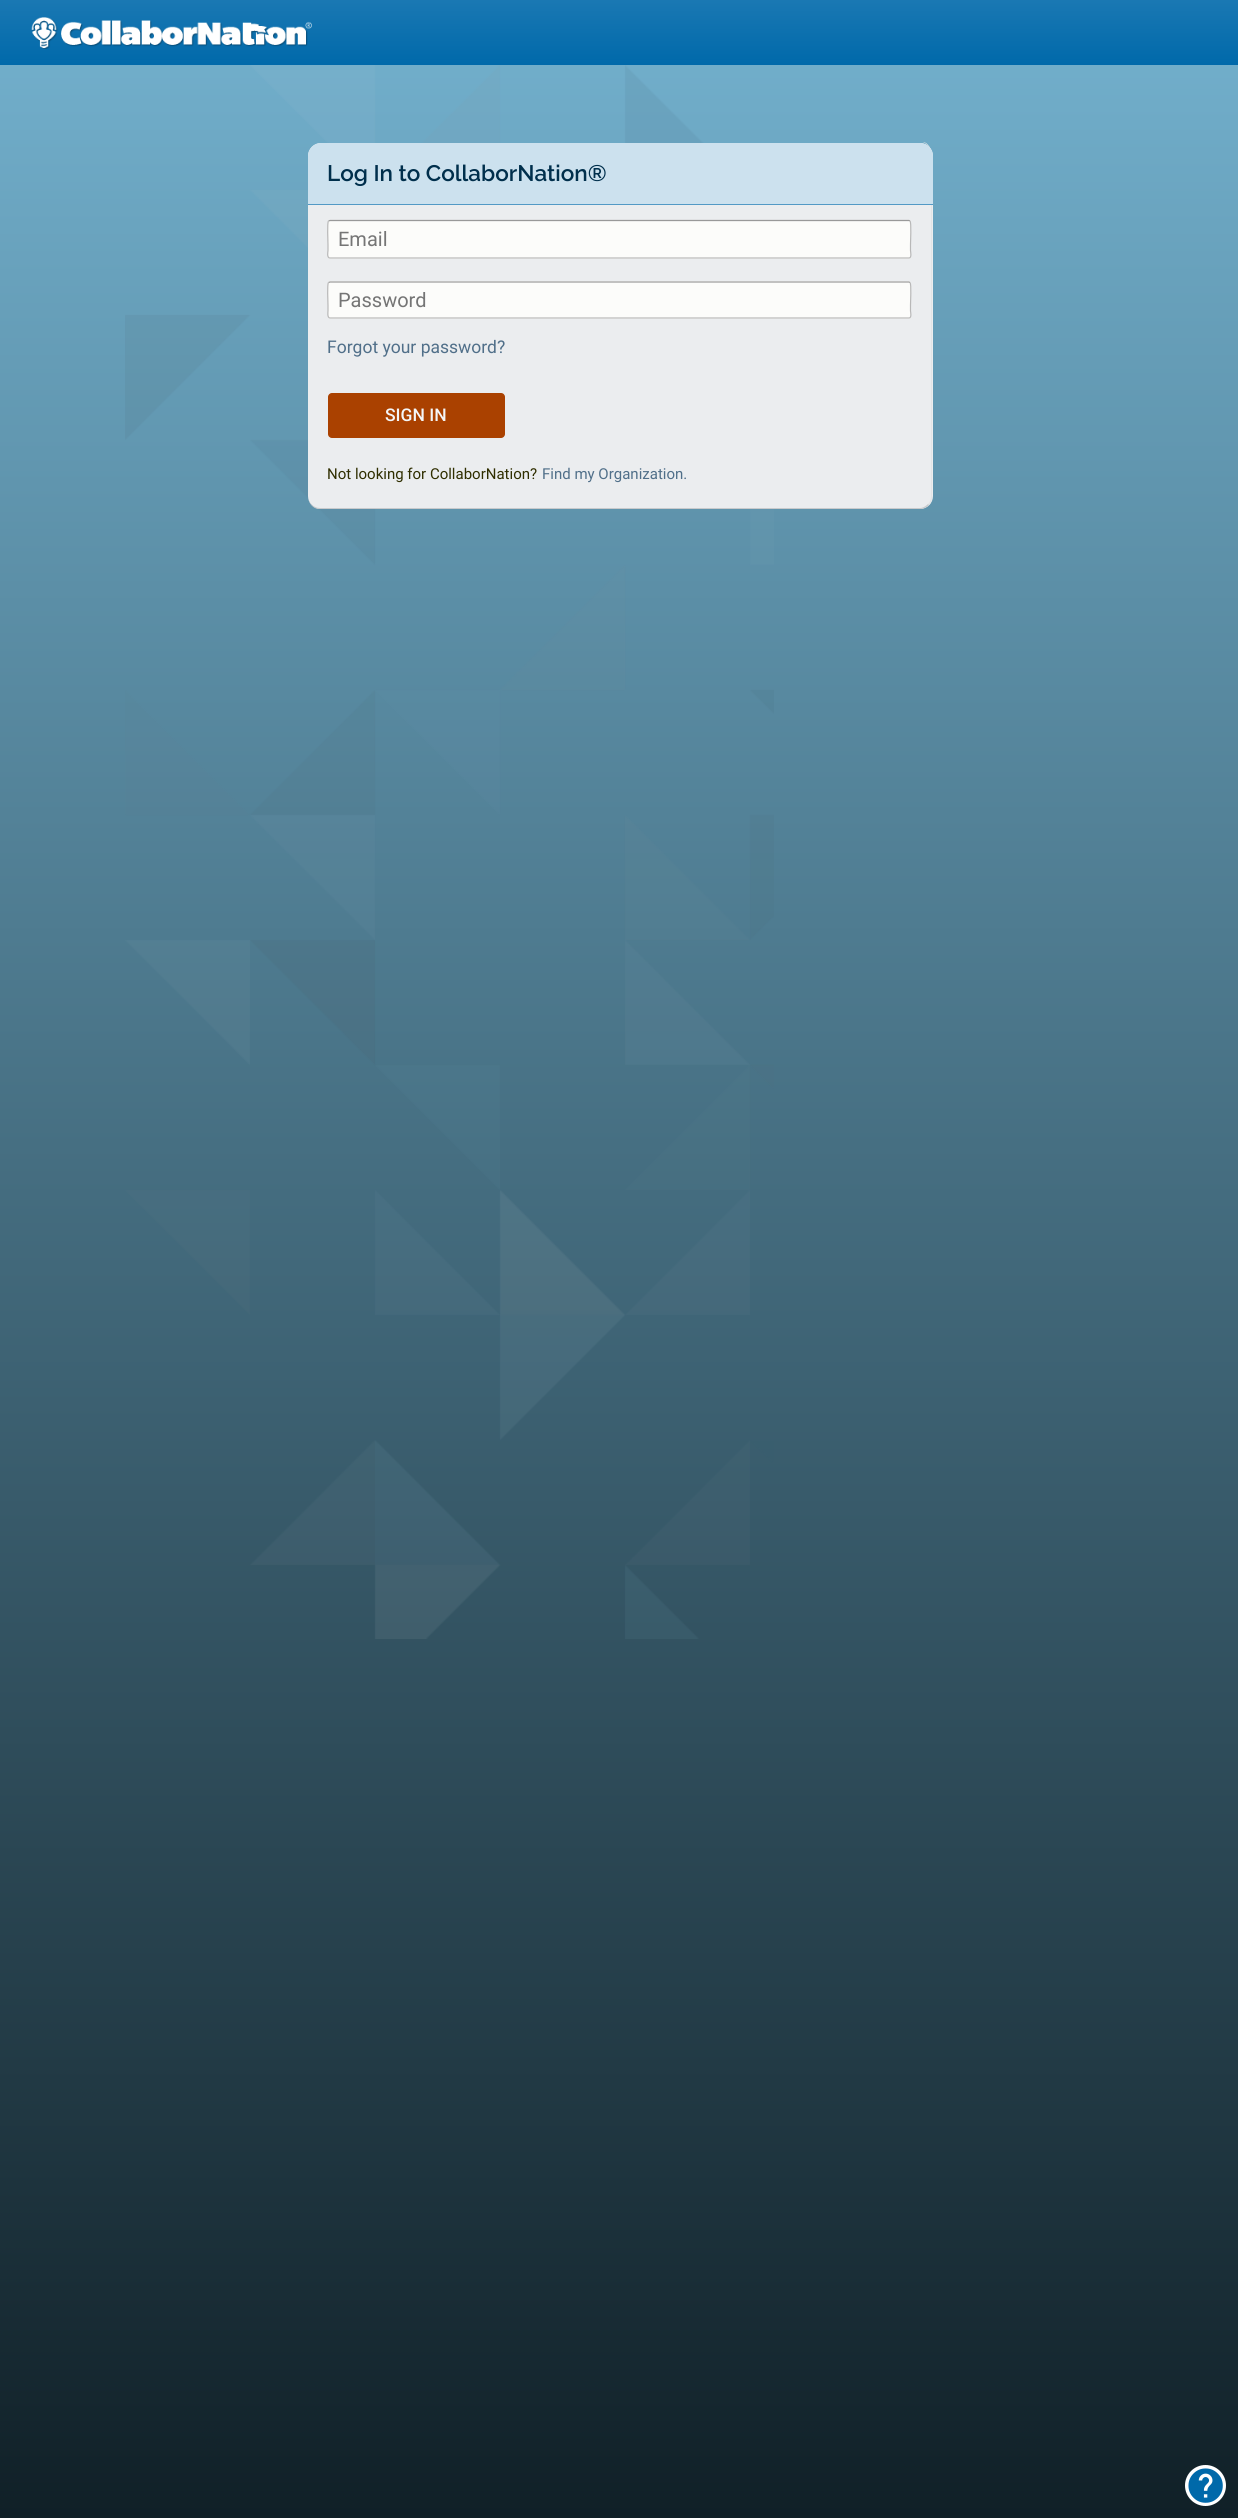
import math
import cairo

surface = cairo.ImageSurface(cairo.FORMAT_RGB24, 1238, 2518)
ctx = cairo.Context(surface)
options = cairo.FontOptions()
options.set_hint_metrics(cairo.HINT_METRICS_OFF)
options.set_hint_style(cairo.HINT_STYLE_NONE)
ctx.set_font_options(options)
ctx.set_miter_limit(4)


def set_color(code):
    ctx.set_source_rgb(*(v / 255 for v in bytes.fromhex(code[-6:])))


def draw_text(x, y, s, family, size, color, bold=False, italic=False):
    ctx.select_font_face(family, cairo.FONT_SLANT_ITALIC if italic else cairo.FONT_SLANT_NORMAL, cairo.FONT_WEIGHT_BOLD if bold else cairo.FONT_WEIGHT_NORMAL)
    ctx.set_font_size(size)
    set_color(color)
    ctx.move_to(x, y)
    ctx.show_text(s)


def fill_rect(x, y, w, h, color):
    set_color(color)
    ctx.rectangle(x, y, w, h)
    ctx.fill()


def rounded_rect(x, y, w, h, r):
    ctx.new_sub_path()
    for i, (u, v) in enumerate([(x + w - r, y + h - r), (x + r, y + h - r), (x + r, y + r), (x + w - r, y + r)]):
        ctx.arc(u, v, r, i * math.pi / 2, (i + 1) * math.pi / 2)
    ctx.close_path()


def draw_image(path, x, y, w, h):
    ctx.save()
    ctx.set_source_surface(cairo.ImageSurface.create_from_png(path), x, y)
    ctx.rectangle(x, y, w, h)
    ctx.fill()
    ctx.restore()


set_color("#ffffff")
ctx.paint()
gradient = cairo.LinearGradient(619, 0, 619, 65)
gradient.add_color_stop_rgba(0, 0.102, 0.471, 0.702, 1)
gradient.add_color_stop_rgba(1, 0, 0.412, 0.667, 1)
ctx.set_source(gradient)
ctx.rectangle(0, 0, 1238, 65)
ctx.fill()
draw_image("assets/img1.png", 31, 17, 281, 32)
gradient = cairo.LinearGradient(619, 0, 619, 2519)
gradient.add_color_stop_rgba(0, 0.451, 0.694, 0.808, 1)
gradient.add_color_stop_rgba(1, 0.063, 0.125, 0.153, 1)
ctx.set_source(gradient)
ctx.rectangle(0, 65, 1238, 2453)
ctx.fill()
draw_image("assets/img2.png", 125, 65, 649, 1574)
set_color("#ebedef")
rounded_rect(308, 143, 625, 366, 13)
ctx.fill()
set_color("#e2e4e6")
ctx.new_path()
ctx.move_to(928, 504)
ctx.curve_to(930, 502, 931, 499, 931, 496)
ctx.line_to(931, 155)
ctx.curve_to(931, 149, 928, 144, 923, 142)
ctx.curve_to(928, 142, 932, 150, 932, 155)
ctx.line_to(932, 497)
ctx.curve_to(932, 500, 931, 503, 929, 505)
ctx.close_path()
ctx.fill()
set_color("#c8cacc")
ctx.new_path()
ctx.move_to(922, 509)
ctx.line_to(318, 509)
ctx.curve_to(312, 508, 308, 502, 308, 496)
ctx.curve_to(308, 502, 313, 508, 320, 508)
ctx.line_to(920, 508)
ctx.curve_to(923, 508, 926, 506, 928, 504)
ctx.line_to(929, 505)
ctx.curve_to(927, 507, 925, 508, 922, 509)
ctx.close_path()
ctx.fill()
set_color("#cce1ee")
ctx.new_path()
ctx.move_to(321, 143)
ctx.line_to(920, 143)
ctx.curve_to(927, 143, 933, 149, 933, 156)
ctx.line_to(933, 205)
ctx.line_to(308, 205)
ctx.line_to(308, 156)
ctx.curve_to(308, 149, 314, 143, 321, 143)
ctx.close_path()
ctx.fill()
fill_rect(308, 204, 625, 1, "#5299c5")
draw_text(327, 181, "Log In to CollaborNation®", "Raleway SemiBold", 22.5, "#002f4c")
set_color("#fcfcfa")
rounded_rect(328, 220, 583, 39, 2.5)
ctx.fill()
ctx.new_path()
ctx.move_to(328.5, 221)
ctx.line_to(330, 220.5)
ctx.line_to(909, 220.5)
ctx.line_to(910, 221)
set_color("#999999")
ctx.set_line_width(1.2)
ctx.stroke()
ctx.new_path()
ctx.move_to(910, 221)
ctx.curve_to(911.5, 222.5, 910.5, 242, 910.5, 245)
ctx.line_to(910.5, 250.5)
ctx.curve_to(910.5, 251.5, 912, 258, 909, 258)
ctx.line_to(330, 258)
ctx.curve_to(326.5, 258, 328, 251.5, 328, 250.5)
ctx.line_to(328, 245)
ctx.curve_to(328, 242, 327, 222.5, 328.5, 221)
set_color("#b8b8b8")
ctx.stroke()
draw_text(338, 246, "Email", "Roboto", 20, "#757575")
set_color("#fcfcfa")
rounded_rect(328, 281, 583, 38, 2.5)
ctx.fill()
ctx.new_path()
ctx.move_to(328.5, 282.5)
ctx.line_to(330, 282)
ctx.line_to(909, 282)
ctx.line_to(910, 282.5)
set_color("#999999")
ctx.stroke()
ctx.new_path()
ctx.move_to(910, 282.5)
ctx.curve_to(911.5, 284, 910.5, 302.5, 910.5, 305.5)
ctx.line_to(910.5, 311)
ctx.curve_to(910.5, 311.5, 912, 318, 909, 318)
ctx.line_to(330, 318)
ctx.curve_to(327, 318, 328, 311.5, 328, 311)
ctx.line_to(328, 305.5)
ctx.curve_to(328, 302.5, 327, 284, 328.5, 282.5)
set_color("#b8b8b8")
ctx.stroke()
draw_text(338, 307, "Password", "Roboto", 20, "#757575")
draw_text(327, 353, "Forgot your password?", "Roboto", 17.5, "#506f89")
set_color("#aa4100")
rounded_rect(328, 393, 177, 45, 4)
ctx.fill()
draw_text(385, 421, "SIGN IN", "Roboto Medium", 17.5, "#f4f6f8")
draw_text(327, 479, "Not looking for CollaborNation?", "Roboto", 15, "#2f2e00")
draw_text(542, 479, "Find my Organization.", "Roboto", 15, "#506f89")
set_color("#ffffff")
ctx.new_path()
ctx.arc(1205.5, 2485.5, 20.5, 0, 2 * math.pi)
ctx.fill()
draw_image("assets/img3.png", 1188, 2468, 35, 35)
surface.write_to_png("output.png")
